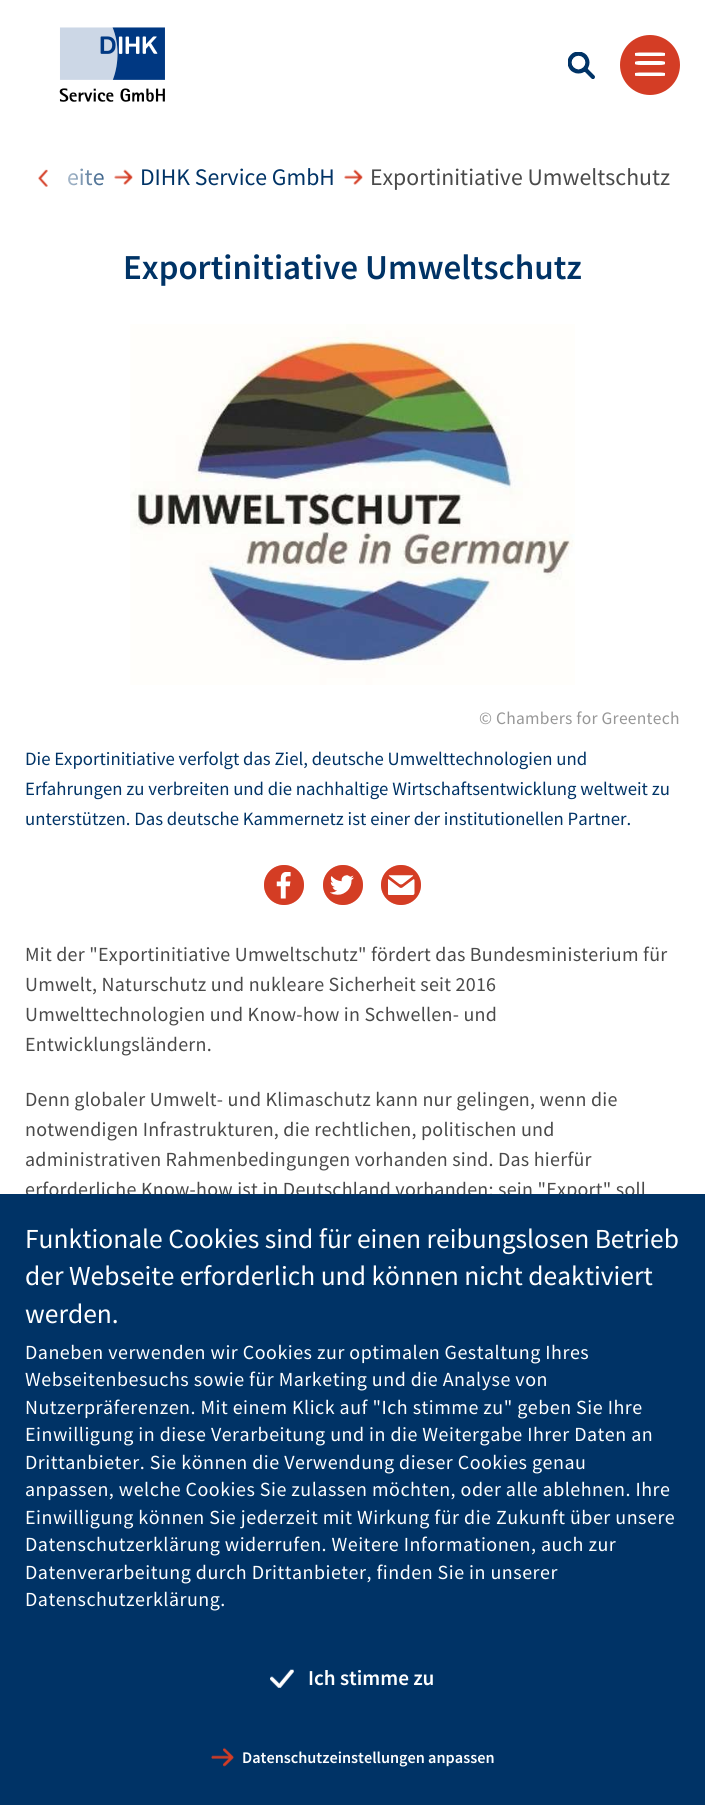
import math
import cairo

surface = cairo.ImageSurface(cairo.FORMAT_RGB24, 705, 1805)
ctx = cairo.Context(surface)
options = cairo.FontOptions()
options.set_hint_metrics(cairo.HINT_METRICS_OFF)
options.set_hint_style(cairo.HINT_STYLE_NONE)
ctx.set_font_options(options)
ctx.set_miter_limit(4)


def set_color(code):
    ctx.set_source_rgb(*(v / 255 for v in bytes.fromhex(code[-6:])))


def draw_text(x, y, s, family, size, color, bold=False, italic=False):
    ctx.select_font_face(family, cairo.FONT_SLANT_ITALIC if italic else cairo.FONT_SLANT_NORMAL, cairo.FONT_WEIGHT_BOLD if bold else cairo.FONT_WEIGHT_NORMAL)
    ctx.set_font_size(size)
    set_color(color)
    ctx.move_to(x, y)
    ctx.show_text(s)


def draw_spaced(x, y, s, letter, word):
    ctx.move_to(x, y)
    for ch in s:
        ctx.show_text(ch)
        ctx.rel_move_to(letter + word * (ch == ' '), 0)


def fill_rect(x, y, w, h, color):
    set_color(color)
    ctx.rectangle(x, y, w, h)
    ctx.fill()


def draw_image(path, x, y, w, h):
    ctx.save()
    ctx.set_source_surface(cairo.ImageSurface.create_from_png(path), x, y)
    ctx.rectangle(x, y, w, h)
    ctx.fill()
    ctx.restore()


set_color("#ffffff")
ctx.paint()
draw_image("assets/img1.png", 59, 27, 106, 75)
draw_image("assets/img2.png", 568, 52, 27, 27)
set_color("#d43d25")
ctx.arc(650, 65, 30, 0, 2 * math.pi)
ctx.fill()
set_color("#ffffff")
ctx.new_path()
ctx.move_to(641, 52.5)
ctx.line_to(659, 52.5)
ctx.curve_to(662.5, 52.5, 665, 53, 665, 53)
ctx.line_to(665, 55.5)
ctx.curve_to(665, 56, 662.5, 56, 659, 56)
ctx.line_to(641, 56)
ctx.curve_to(637.5, 56, 635, 56, 635, 55.5)
ctx.line_to(635, 53)
ctx.curve_to(635, 53, 637.5, 52.5, 641, 52.5)
ctx.close_path()
ctx.move_to(641, 61)
ctx.line_to(659, 61)
ctx.curve_to(662.5, 61, 665, 61.5, 665, 62)
ctx.line_to(665, 64)
ctx.curve_to(665, 64.5, 662.5, 65, 659, 65)
ctx.line_to(641, 65)
ctx.curve_to(637.5, 65, 635, 64.5, 635, 64)
ctx.line_to(635, 62)
ctx.curve_to(635, 61.5, 637.5, 61, 641, 61)
ctx.close_path()
ctx.move_to(641, 72.5)
ctx.line_to(659, 72.5)
ctx.curve_to(662.5, 72.5, 665, 73, 665, 73)
ctx.line_to(665, 75.5)
ctx.curve_to(665, 76, 662.5, 76, 659, 76)
ctx.line_to(641, 76)
ctx.curve_to(637.5, 76, 635, 76, 635, 75.5)
ctx.line_to(635, 73)
ctx.curve_to(635, 73, 637.5, 72.5, 641, 72.5)
ctx.close_path()
ctx.fill()
draw_text(67, 185, "eite", "Source Sans Pro", 23.75, "#003366")
draw_image("assets/img3.png", 114, 169, 19, 16)
draw_text(140, 185, "DIHK Service GmbH", "Source Sans Pro", 23.75, "#003366")
draw_image("assets/img3.png", 344, 169, 19, 16)
draw_text(370, 185, "Exportinitiative Umweltschutz", "Source Sans Pro", 23.75, "#4a4a4a")
draw_image("assets/img4.png", 38, 169, 10, 18)
gradient = cairo.LinearGradient(25, 178, 125, 178)
gradient.add_color_stop_rgba(0, 1, 1, 1, 1)
gradient.add_color_stop_rgba(0.13, 1, 1, 1, 1)
gradient.add_color_stop_rgba(1, 1, 1, 1, 0)
ctx.set_source(gradient)
ctx.rectangle(68, 168, 55, 18)
ctx.fill()
draw_text(123, 279, "Exportinitiative Umweltschutz", "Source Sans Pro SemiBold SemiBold", 35, "#003366")
draw_image("assets/img5.png", 130, 324, 445, 361)
ctx.select_font_face("Source Sans Pro")
ctx.set_font_size(17.5)
set_color("#979797")
draw_spaced(479, 724, "© Chambers for Greentech", 0.25, 0)
draw_text(25, 765, "Die Exportinitiative verfolgt das Ziel, deutsche Umwelttechnologien und", "Source Sans Pro", 18.75, "#003366")
draw_text(25, 795, "Erfahrungen zu verbreiten und die nachhaltige Wirtschaftsentwicklung weltweit zu", "Source Sans Pro", 18.75, "#003366")
draw_text(25, 825, "unterstützen. Das deutsche Kammernetz ist einer der institutionellen Partner.", "Source Sans Pro", 18.75, "#003366")
set_color("#d43d25")
ctx.new_path()
ctx.arc(284, 885, 20, 0, 2 * math.pi)
ctx.fill()
ctx.set_source_rgba(0.831, 0.239, 0.145, 0.4)
ctx.arc(284, 885, 20, 0, 2 * math.pi)
ctx.fill()
draw_image("assets/img6.png", 276, 872, 15, 27)
set_color("#d43d25")
ctx.arc(343, 885, 20, 0, 2 * math.pi)
ctx.fill()
ctx.set_source_rgba(0.831, 0.239, 0.145, 0.4)
ctx.arc(343, 885, 20, 0, 2 * math.pi)
ctx.fill()
draw_image("assets/img7.png", 330, 875, 24, 20)
set_color("#d43d25")
ctx.arc(401, 885, 20, 0, 2 * math.pi)
ctx.fill()
ctx.set_source_rgba(0.831, 0.239, 0.145, 0.4)
ctx.arc(401, 885, 20, 0, 2 * math.pi)
ctx.fill()
draw_image("assets/img8.png", 388, 875, 27, 20)
ctx.set_font_size(20)
set_color("#4a4a4a")
draw_spaced(25, 961, "Mit der \"Exportinitiative Umweltschutz\" fördert das Bundesministerium für", 0.25, 0)
draw_spaced(25, 991, "Umwelt, Naturschutz und nukleare Sicherheit seit 2016", 0.25, 0)
draw_spaced(25, 1021, "Umwelttechnologien und Know-how in Schwellen- und", 0.25, 0)
draw_spaced(25, 1051, "Entwicklungsländern.", 0.25, 0)
draw_spaced(25, 1106, "Denn globaler Umwelt- und Klimaschutz kann nur gelingen, wenn die", 0.25, 0)
draw_spaced(25, 1136, "notwendigen Infrastrukturen, die rechtlichen, politischen und", 0.25, 0)
draw_spaced(25, 1166, "administrativen Rahmenbedingungen vorhanden sind. Das hierfür", 0.25, 0)
draw_spaced(25, 1196, "erforderliche Know-how ist in Deutschland vorhanden; sein \"Export\" soll", 0.25, 0)
fill_rect(0, 1194, 705, 611, "#003366")
draw_text(25, 1248, "Funktionale Cookies sind für einen reibungslosen Betrieb", "Source Sans Pro", 27.5, "#ffffff")
draw_text(25, 1285, "der Webseite erforderlich und können nicht deaktiviert", "Source Sans Pro", 27.5, "#ffffff")
draw_text(25, 1323, "werden.", "Source Sans Pro", 27.5, "#ffffff")
ctx.set_font_size(20)
draw_spaced(25, 1359, "Daneben verwenden wir Cookies zur optimalen Gestaltung Ihres", 0.5, 0)
draw_spaced(25, 1386, "Webseitenbesuchs sowie für Marketing und die Analyse von", 0.5, 0)
draw_spaced(25, 1414, "Nutzerpräferenzen. Mit einem Klick auf \"Ich stimme zu\" geben Sie Ihre", 0.5, 0)
draw_spaced(25, 1441, "Einwilligung in diese Verarbeitung und in die Weitergabe Ihrer Daten an", 0.5, 0)
draw_spaced(25, 1469, "Drittanbieter. Sie können die Verwendung dieser Cookies genau", 0.5, 0)
draw_spaced(25, 1496, "anpassen, welche Cookies Sie zulassen möchten, oder alle ablehnen. Ihre", 0.5, 0)
draw_spaced(25, 1524, "Einwilligung können Sie jederzeit mit Wirkung für die Zukunft über unsere", 0.5, 0)
draw_spaced(25, 1551, "Datenschutzerklärung widerrufen. Weitere Informationen, auch zur", 0.5, 0)
draw_spaced(25, 1579, "Datenverarbeitung durch Drittanbieter, finden Sie in unserer", 0.5, 0)
draw_spaced(25, 1606, "Datenschutzerklärung.", 0.5, 0)
draw_image("assets/img9.png", 270, 1669, 24, 19)
draw_text(308, 1685, "Ich stimme zu", "Source Sans Pro SemiBold SemiBold", 21.25, "#ffffff")
draw_image("assets/img10.png", 211, 1747, 23, 20)
draw_text(242, 1763, "Datenschutzeinstellungen anpassen", "Source Sans Pro SemiBold SemiBold", 16.25, "#ffffff")
surface.write_to_png("output.png")
